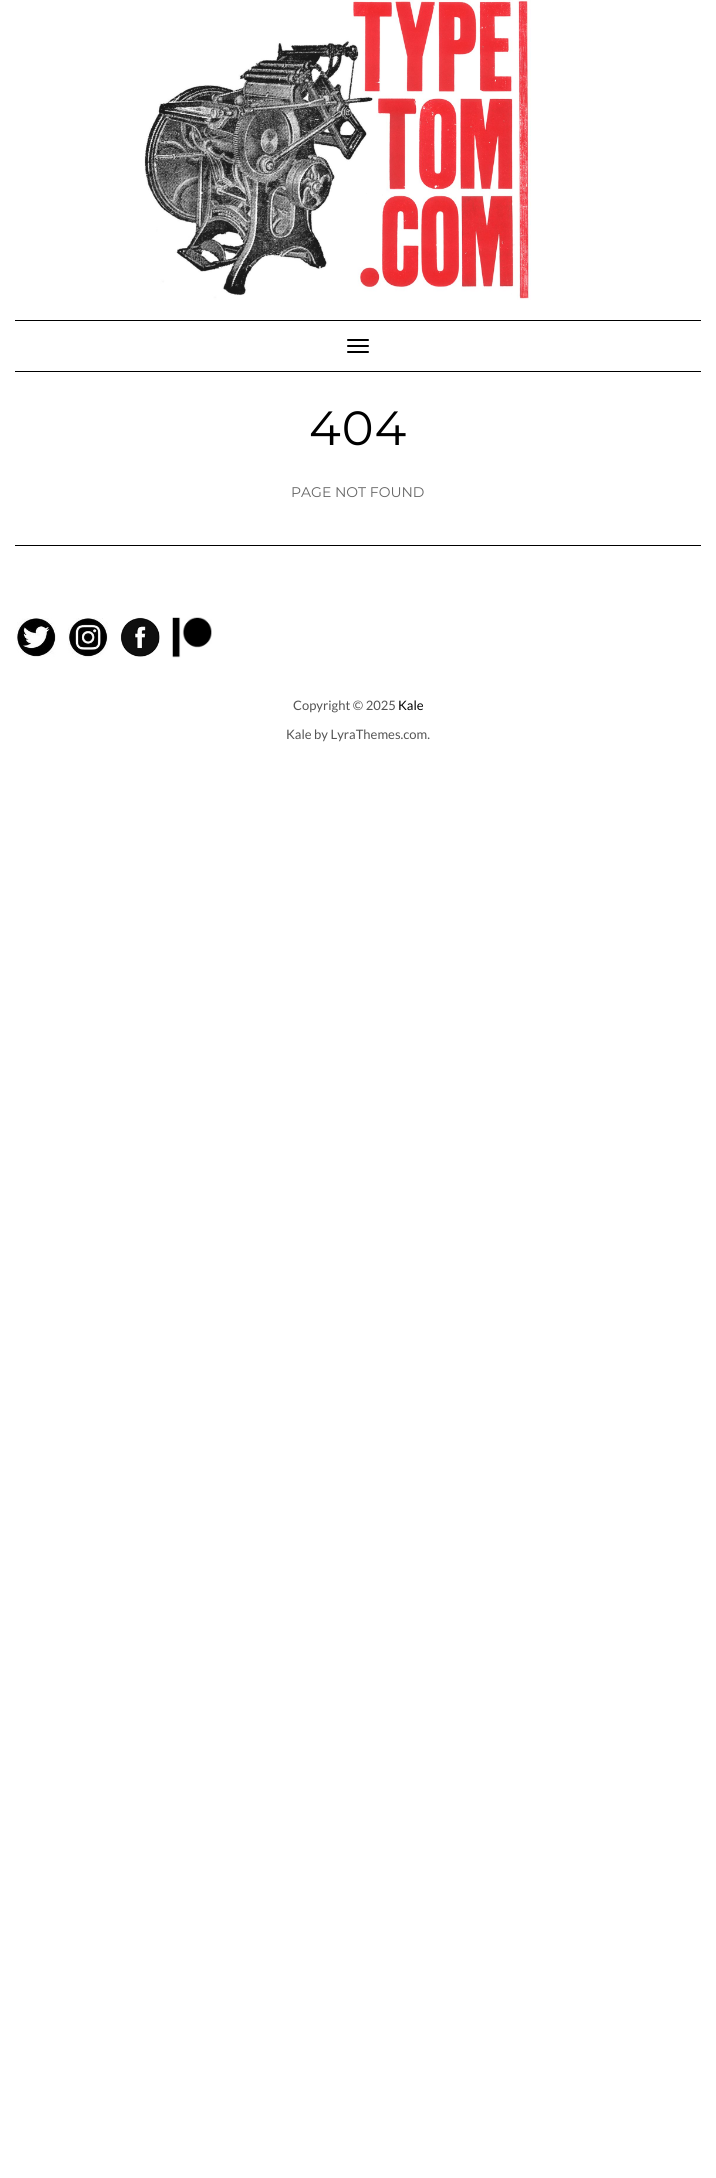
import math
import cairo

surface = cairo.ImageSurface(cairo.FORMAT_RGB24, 716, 2178)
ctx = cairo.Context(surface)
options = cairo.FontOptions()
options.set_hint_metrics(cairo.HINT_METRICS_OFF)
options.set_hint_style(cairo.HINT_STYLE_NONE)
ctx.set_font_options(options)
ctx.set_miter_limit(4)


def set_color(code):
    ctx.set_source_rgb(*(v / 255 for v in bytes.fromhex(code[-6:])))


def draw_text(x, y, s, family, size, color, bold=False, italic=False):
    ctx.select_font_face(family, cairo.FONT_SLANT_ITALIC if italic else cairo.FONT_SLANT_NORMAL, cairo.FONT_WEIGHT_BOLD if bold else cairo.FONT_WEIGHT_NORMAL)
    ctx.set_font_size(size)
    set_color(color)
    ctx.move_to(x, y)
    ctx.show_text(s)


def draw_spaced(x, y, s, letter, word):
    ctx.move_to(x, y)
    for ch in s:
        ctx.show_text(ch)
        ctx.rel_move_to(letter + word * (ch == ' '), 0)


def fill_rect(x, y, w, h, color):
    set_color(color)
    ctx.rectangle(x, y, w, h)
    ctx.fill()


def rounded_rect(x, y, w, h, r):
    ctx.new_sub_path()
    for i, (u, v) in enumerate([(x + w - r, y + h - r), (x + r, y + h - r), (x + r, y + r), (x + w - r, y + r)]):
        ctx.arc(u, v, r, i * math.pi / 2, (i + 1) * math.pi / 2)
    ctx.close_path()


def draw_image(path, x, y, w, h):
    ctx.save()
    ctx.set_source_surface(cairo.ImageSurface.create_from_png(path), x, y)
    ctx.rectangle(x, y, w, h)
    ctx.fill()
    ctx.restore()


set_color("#ffffff")
ctx.paint()
draw_image("assets/img1.png", 144, 0, 387, 300)
fill_rect(15, 320, 686, 1, "#000000")
fill_rect(15, 371, 686, 1, "#000000")
rounded_rect(347, 339, 22, 2, 1)
ctx.fill()
rounded_rect(347, 345, 22, 2, 1)
ctx.fill()
rounded_rect(347, 351, 22, 2, 1)
ctx.fill()
ctx.select_font_face("Montserrat")
ctx.set_font_size(48)
draw_spaced(309, 445, "404", 1, 0)
draw_text(291, 497, "PAGE NOT FOUND", "Montserrat", 14, "#666666")
fill_rect(15, 545, 686, 1, "#000000")
draw_image("assets/img2.png", 16, 618, 40, 39)
draw_image("assets/img3.png", 68, 618, 40, 40)
draw_image("assets/img4.png", 120, 617, 40, 40)
draw_image("assets/img5.png", 172, 617, 40, 41)
draw_text(293, 710, "Copyright © 2025", "Lato", 13, "#545454")
draw_text(398, 710, "Kale", "Lato", 13, "#000000")
draw_text(286, 739, "Kale by LyraThemes.com.", "Lato", 13, "#545454")
surface.write_to_png("output.png")
